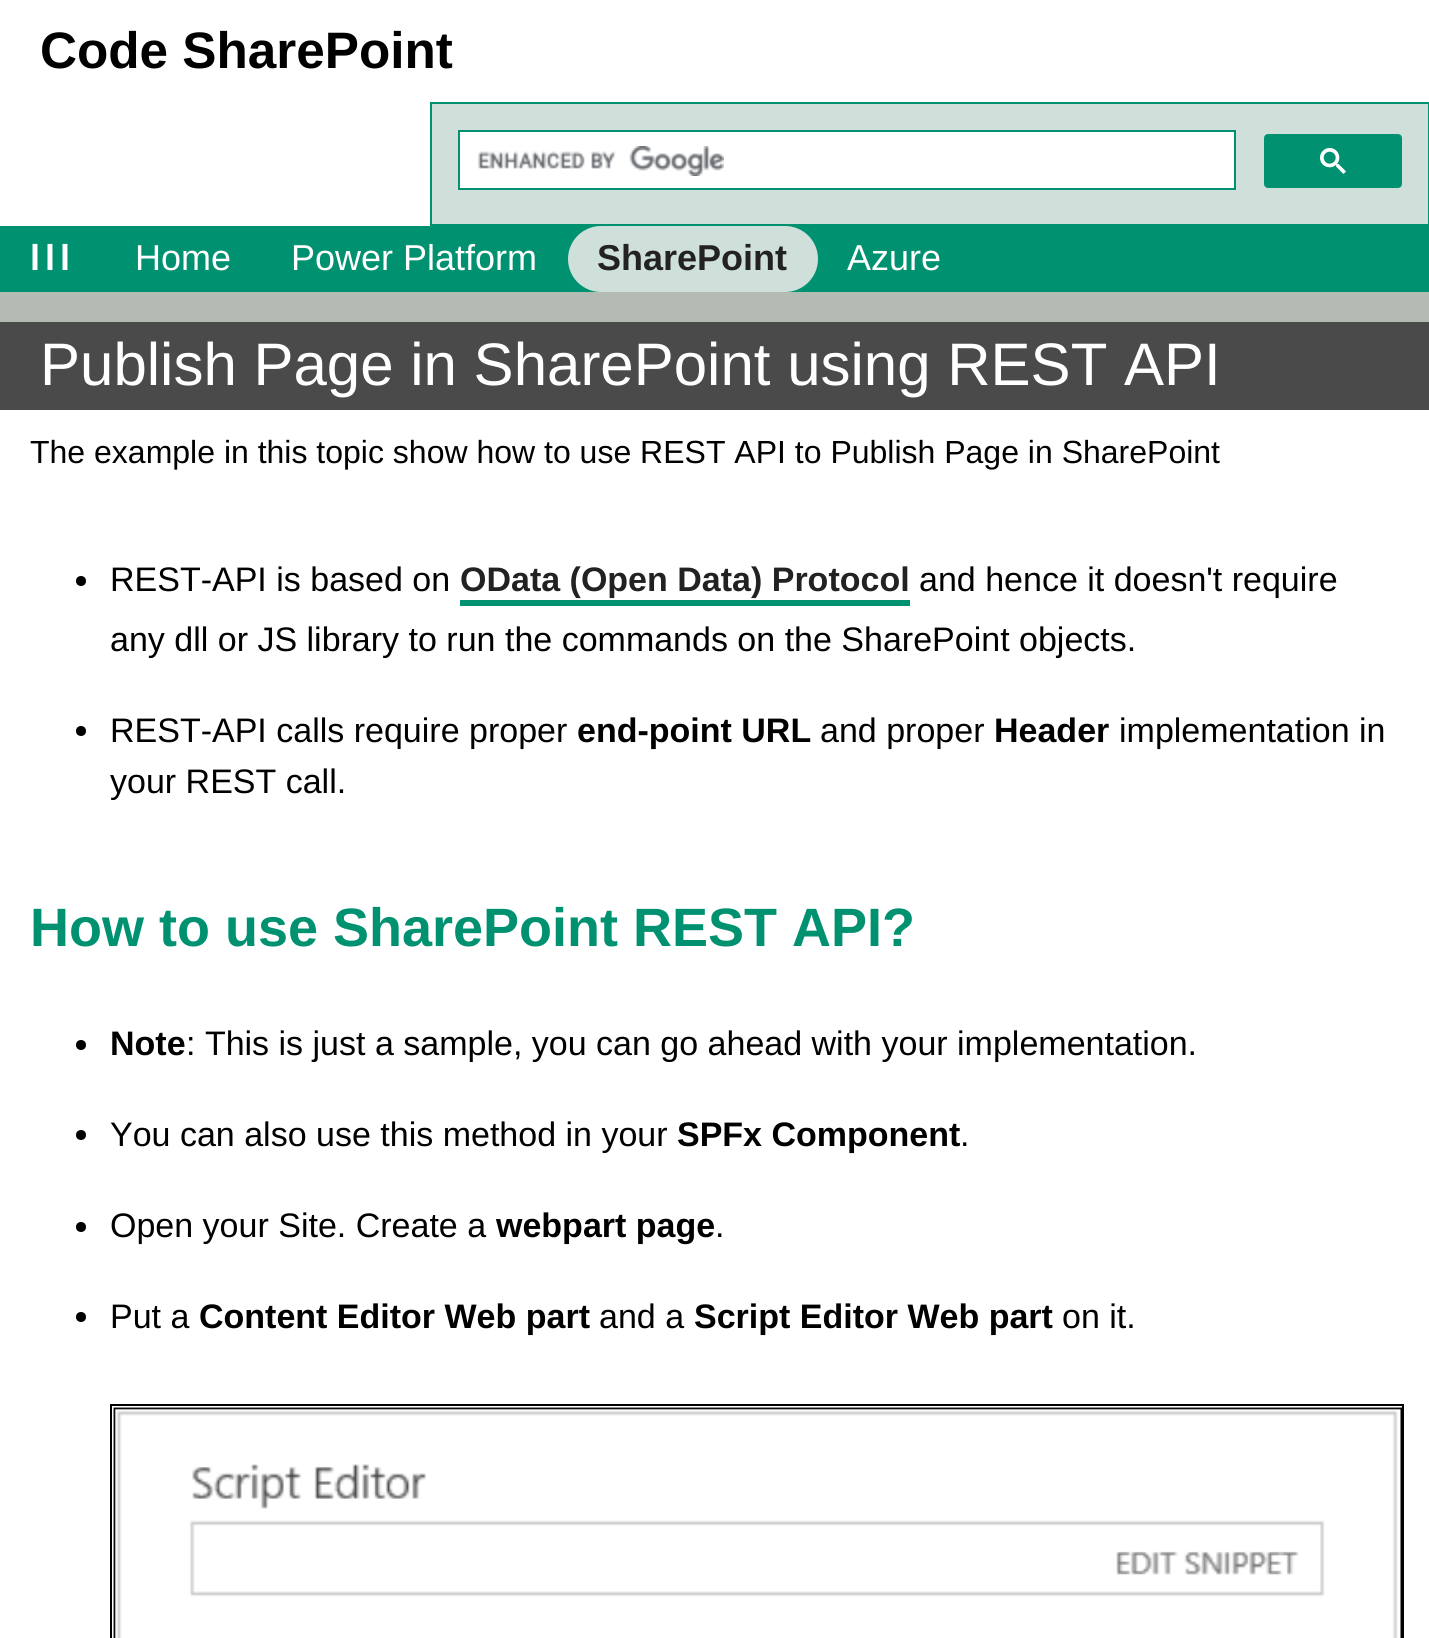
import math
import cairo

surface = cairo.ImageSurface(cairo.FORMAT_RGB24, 1429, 1638)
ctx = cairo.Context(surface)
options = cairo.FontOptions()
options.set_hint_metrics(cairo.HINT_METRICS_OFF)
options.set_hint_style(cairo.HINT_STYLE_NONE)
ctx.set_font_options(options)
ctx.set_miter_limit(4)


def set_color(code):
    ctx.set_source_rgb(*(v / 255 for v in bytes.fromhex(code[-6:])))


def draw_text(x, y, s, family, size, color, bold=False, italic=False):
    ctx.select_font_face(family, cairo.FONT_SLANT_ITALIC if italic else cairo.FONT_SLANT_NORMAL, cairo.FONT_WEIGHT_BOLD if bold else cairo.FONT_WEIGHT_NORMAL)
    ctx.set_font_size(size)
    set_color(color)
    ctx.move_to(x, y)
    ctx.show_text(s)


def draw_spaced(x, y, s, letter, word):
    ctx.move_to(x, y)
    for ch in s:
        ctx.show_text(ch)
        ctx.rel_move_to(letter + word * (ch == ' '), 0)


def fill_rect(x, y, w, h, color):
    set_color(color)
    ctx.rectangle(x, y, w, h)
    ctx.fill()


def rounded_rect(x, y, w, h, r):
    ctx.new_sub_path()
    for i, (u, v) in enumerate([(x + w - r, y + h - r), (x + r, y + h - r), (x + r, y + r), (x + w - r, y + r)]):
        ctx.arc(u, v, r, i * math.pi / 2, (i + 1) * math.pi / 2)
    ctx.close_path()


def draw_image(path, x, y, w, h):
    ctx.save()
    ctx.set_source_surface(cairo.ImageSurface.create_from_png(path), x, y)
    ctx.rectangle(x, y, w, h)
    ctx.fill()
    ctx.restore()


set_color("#b3bbb3")
ctx.paint()
fill_rect(0, 0, 1429, 226, "#ffffff")
draw_text(40, 68, "Code SharePoint", "Liberation Sans", 51.25, "#000000", bold=True)
set_color("#cfe0db")
ctx.rectangle(431, 103, 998, 122)
ctx.fill_preserve()
set_color("#009270")
ctx.stroke()
set_color("#ffffff")
ctx.rectangle(459, 131, 776, 58)
ctx.fill_preserve()
set_color("#009270")
ctx.stroke()
draw_image("assets/img1.png", 478, 146, 246, 30)
rounded_rect(1265, 135, 136, 52, 3)
ctx.fill_preserve()
ctx.stroke()
draw_image("assets/img2.png", 1320, 148, 26, 26)
fill_rect(0, 226, 1429, 66, "#009270")
ctx.set_font_size(36)
set_color("#ffffff")
draw_spaced(30, 270, "lll", 5, 0)
draw_text(135, 270, "Home", "Liberation Sans", 36, "#ffffff")
draw_text(291, 270, "Power Platform", "Liberation Sans", 36, "#ffffff")
set_color("#cfe0db")
rounded_rect(568, 226, 250, 66, 33)
ctx.fill()
draw_text(597, 270, "SharePoint", "Liberation Sans", 36, "#222222", bold=True)
draw_text(847, 270, "Azure", "Liberation Sans", 36, "#ffffff")
fill_rect(0, 410, 1429, 1228, "#ffffff")
fill_rect(0, 322, 1429, 88, "#4a4a4a")
draw_text(40, 385, "Publish Page in SharePoint using REST API", "Liberation Sans", 60, "#ffffff")
draw_text(30, 463, "The example in this topic show how to use REST API to Publish Page in SharePoint", "Liberation Sans", 32, "#000000")
ctx.new_path()
ctx.arc(81, 581, 5, 0, 2 * math.pi)
ctx.fill()
draw_text(110, 591, "REST-API is based on", "Liberation Sans", 34, "#000000")
draw_text(460, 591, "OData (Open Data) Protocol", "Liberation Sans", 34, "#222222", bold=True)
fill_rect(460, 600, 450, 6, "#009270")
draw_text(919, 591, "and hence it doesn't require", "Liberation Sans", 34, "#000000")
draw_text(110, 651, "any dll or JS library to run the commands on the SharePoint objects.", "Liberation Sans", 34, "#000000")
ctx.new_path()
ctx.arc(81, 731, 5, 0, 2 * math.pi)
ctx.fill()
draw_text(110, 742, "REST-API calls require proper", "Liberation Sans", 34, "#000000")
draw_text(577, 742, "end-point URL", "Liberation Sans", 34, "#000000", bold=True)
draw_text(820, 742, "and proper", "Liberation Sans", 34, "#000000")
draw_text(994, 742, "Header", "Liberation Sans", 34, "#000000", bold=True)
draw_text(1119, 742, "implementation in", "Liberation Sans", 34, "#000000")
draw_text(110, 793, "your REST call.", "Liberation Sans", 34, "#000000")
draw_text(30, 946, "How to use SharePoint REST API?", "Liberation Sans", 54, "#009270", bold=True)
set_color("#000000")
ctx.new_path()
ctx.arc(81, 1045, 5, 0, 2 * math.pi)
ctx.fill()
draw_text(110, 1055, "Note", "Liberation Sans", 34, "#000000", bold=True)
draw_text(186, 1055, ": This is just a sample, you can go ahead with your implementation.", "Liberation Sans", 34, "#000000")
ctx.new_path()
ctx.arc(81, 1135, 5, 0, 2 * math.pi)
ctx.fill()
draw_text(110, 1146, "You can also use this method in your", "Liberation Sans", 34, "#000000")
draw_text(677, 1146, "SPFx Component", "Liberation Sans", 34, "#000000", bold=True)
draw_text(960, 1146, ".", "Liberation Sans", 34, "#000000")
ctx.new_path()
ctx.arc(81, 1227, 5, 0, 2 * math.pi)
ctx.fill()
draw_text(110, 1237, "Open your Site. Create a", "Liberation Sans", 34, "#000000")
draw_text(496, 1237, "webpart page", "Liberation Sans", 34, "#000000", bold=True)
draw_text(715, 1237, ".", "Liberation Sans", 34, "#000000")
ctx.new_path()
ctx.arc(81, 1317, 5, 0, 2 * math.pi)
ctx.fill()
draw_text(110, 1328, "Put a", "Liberation Sans", 34, "#000000")
draw_text(199, 1328, "Content Editor Web part", "Liberation Sans", 34, "#000000", bold=True)
draw_text(599, 1328, "and a", "Liberation Sans", 34, "#000000")
draw_text(694, 1328, "Script Editor Web part", "Liberation Sans", 34, "#000000", bold=True)
draw_text(1062, 1328, "on it.", "Liberation Sans", 34, "#000000")
ctx.rectangle(111, 1405, 1292, 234)
ctx.stroke()
draw_image("assets/img3.png", 113, 1407, 1289, 231)
surface.write_to_png("output.png")
